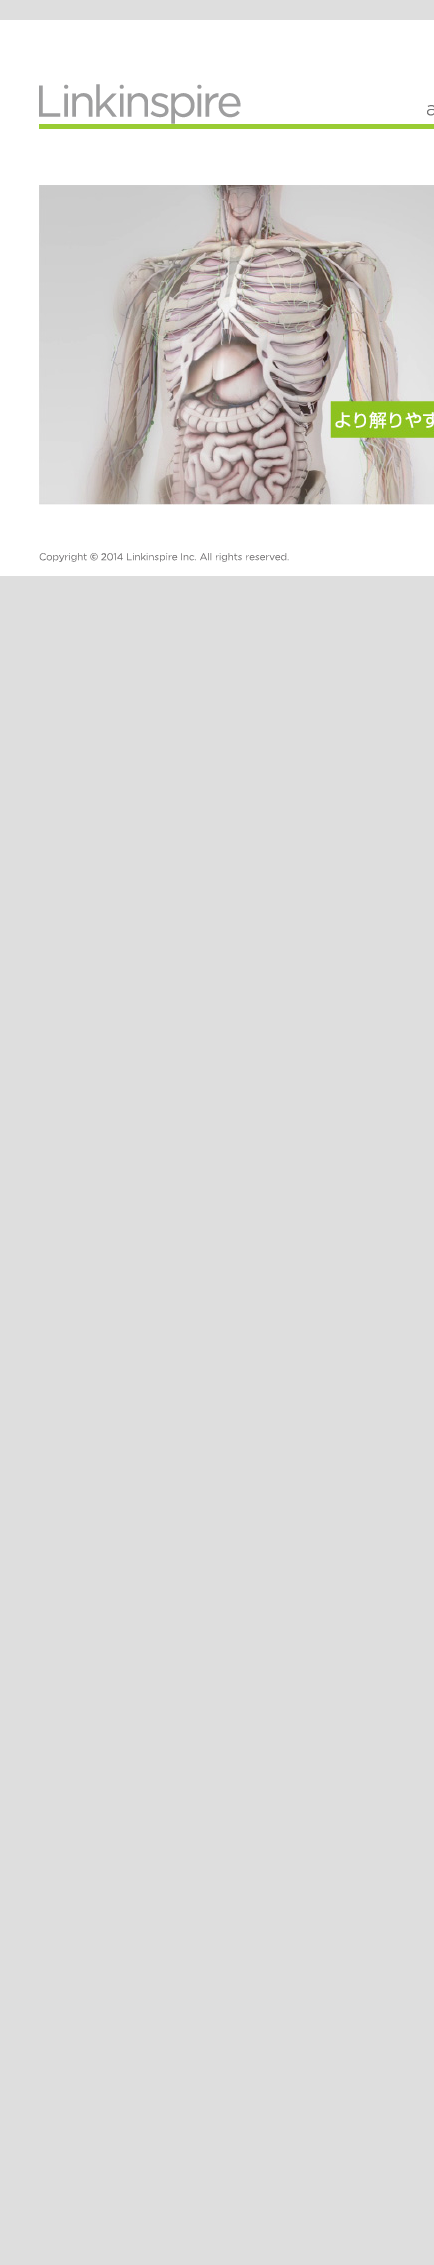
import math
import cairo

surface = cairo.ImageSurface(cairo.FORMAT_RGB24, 434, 2265)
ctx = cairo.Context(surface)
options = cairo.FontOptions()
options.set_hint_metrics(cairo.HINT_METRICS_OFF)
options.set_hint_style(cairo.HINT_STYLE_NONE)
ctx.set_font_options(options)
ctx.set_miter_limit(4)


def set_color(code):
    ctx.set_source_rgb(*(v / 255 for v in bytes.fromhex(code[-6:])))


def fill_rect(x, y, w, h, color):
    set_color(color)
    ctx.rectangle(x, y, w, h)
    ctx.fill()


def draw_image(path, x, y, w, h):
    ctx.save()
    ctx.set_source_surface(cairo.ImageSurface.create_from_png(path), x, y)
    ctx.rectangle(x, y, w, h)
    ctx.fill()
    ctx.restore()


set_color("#dedede")
ctx.paint()
fill_rect(0, 20, 434, 556, "#ffffff")
fill_rect(39, 124, 395, 5, "#99cc33")
draw_image("assets/img1.png", 39, 84, 202, 40)
draw_image("assets/img2.png", 427, 105, 7, 11)
draw_image("assets/img3.png", 39, 185, 395, 320)
draw_image("assets/img4.png", 39, 553, 250, 9)
surface.write_to_png("output.png")
